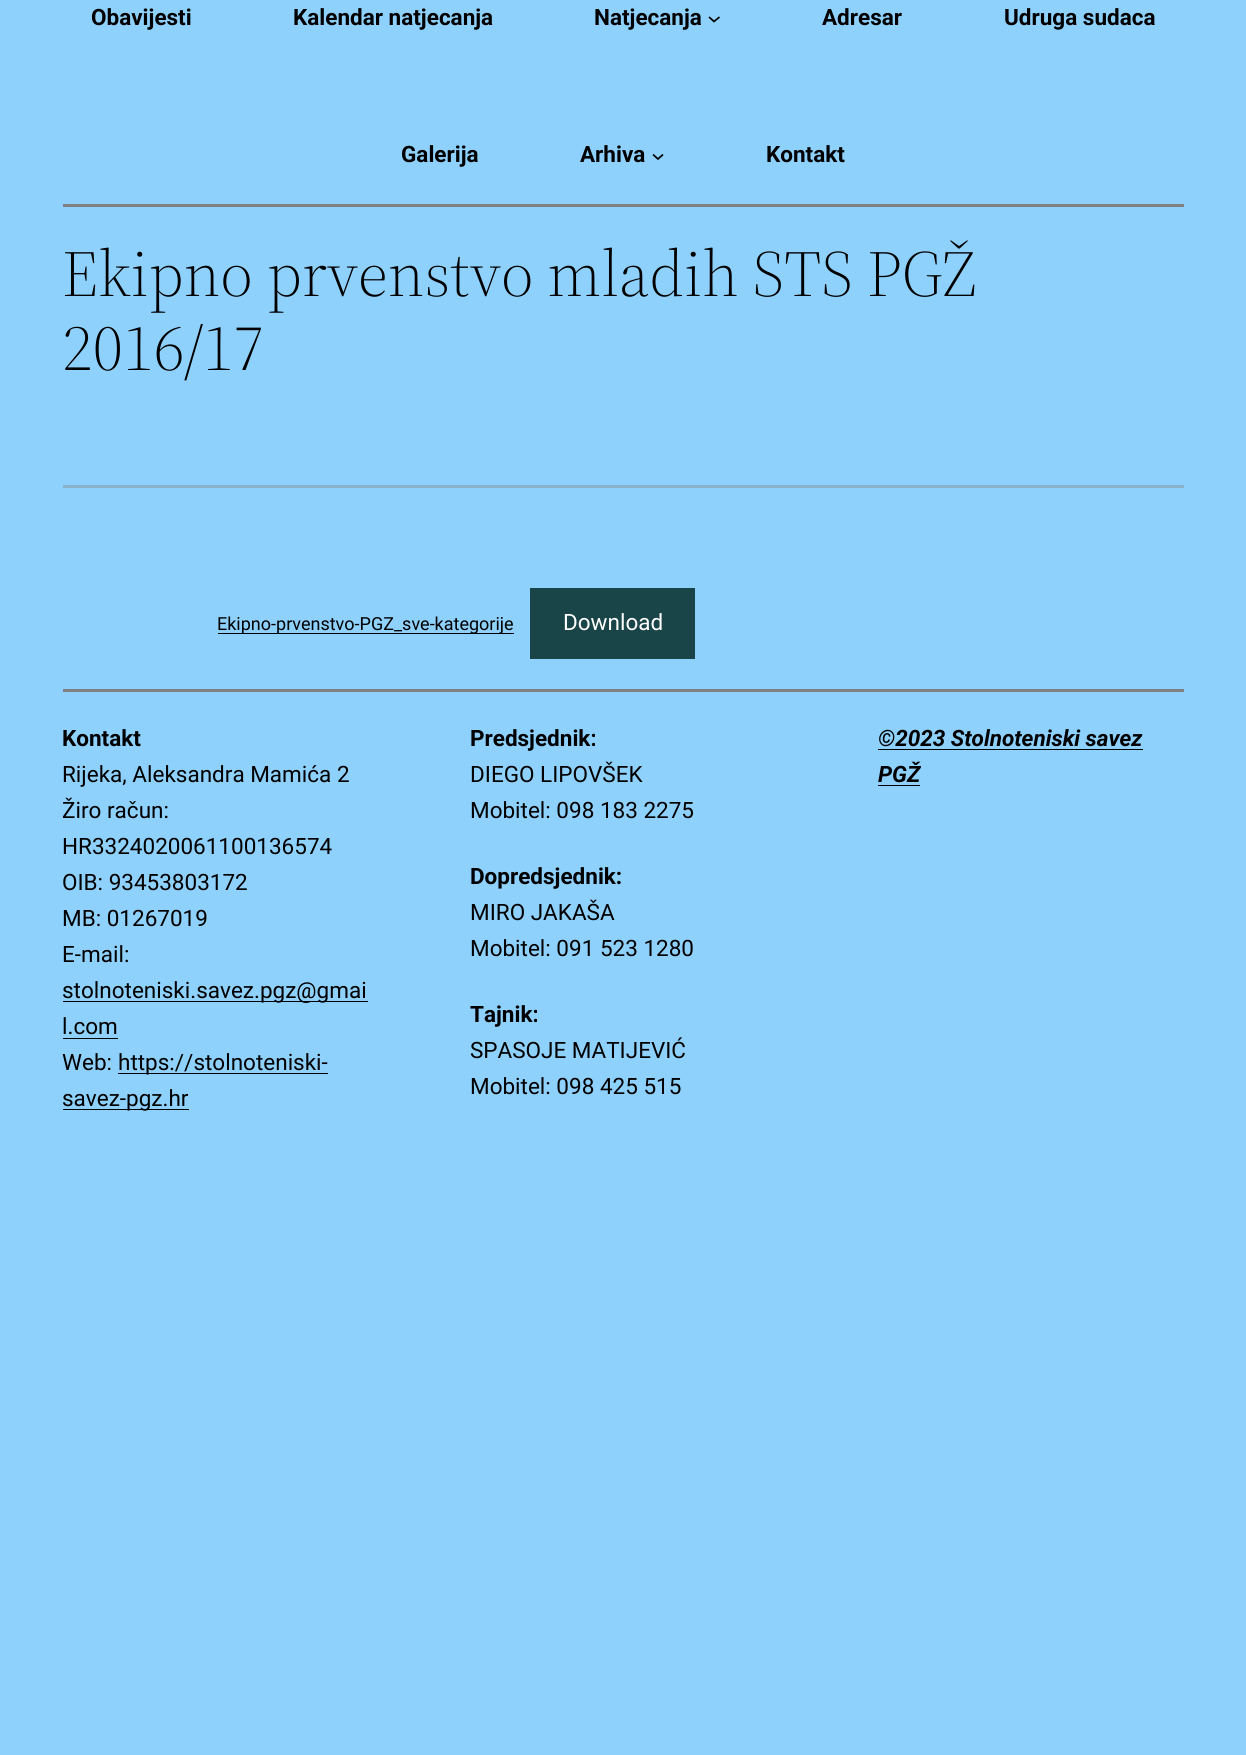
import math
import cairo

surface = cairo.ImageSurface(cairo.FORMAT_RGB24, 1246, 1755)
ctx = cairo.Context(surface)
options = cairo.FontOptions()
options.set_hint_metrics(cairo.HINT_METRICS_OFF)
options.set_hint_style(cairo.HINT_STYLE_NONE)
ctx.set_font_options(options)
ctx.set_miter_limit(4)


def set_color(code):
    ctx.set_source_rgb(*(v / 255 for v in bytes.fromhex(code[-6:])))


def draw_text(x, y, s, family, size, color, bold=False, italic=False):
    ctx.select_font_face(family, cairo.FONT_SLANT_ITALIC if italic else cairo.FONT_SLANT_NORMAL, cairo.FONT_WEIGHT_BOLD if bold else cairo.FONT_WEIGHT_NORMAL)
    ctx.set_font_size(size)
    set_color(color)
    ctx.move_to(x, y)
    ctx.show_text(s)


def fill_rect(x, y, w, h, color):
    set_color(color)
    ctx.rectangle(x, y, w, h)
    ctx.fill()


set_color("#8ed1fc")
ctx.paint()
draw_text(91, 25, "Obavijesti", "Roboto", 22.5, "#000000", bold=True)
draw_text(293, 25, "Kalendar natjecanja", "Roboto", 22.5, "#000000", bold=True)
draw_text(594, 25, "Natjecanja", "Roboto", 22.5, "#000000", bold=True)
ctx.new_path()
ctx.move_to(709, 17)
ctx.line_to(714, 21.5)
ctx.line_to(719.5, 17)
ctx.set_line_width(1.7)
ctx.stroke()
draw_text(822, 25, "Adresar", "Roboto", 22.5, "#000000", bold=True)
draw_text(1004, 25, "Udruga sudaca", "Roboto", 22.5, "#000000", bold=True)
draw_text(401, 162, "Galerija", "Roboto", 22.5, "#000000", bold=True)
draw_text(580, 162, "Arhiva", "Roboto", 22.5, "#000000", bold=True)
ctx.new_path()
ctx.move_to(653, 154.5)
ctx.line_to(658, 159)
ctx.line_to(663, 154.5)
ctx.stroke()
draw_text(766, 162, "Kontakt", "Roboto", 22.5, "#000000", bold=True)
fill_rect(63, 204, 1121, 3, "#808080")
draw_text(62, 296, "Ekipno prvenstvo mladih STS PGŽ", "Source Serif 4 Light", 65, "#000000")
draw_text(62, 370, "2016/17", "Source Serif 4 Light", 65, "#000000")
fill_rect(63, 485, 1121, 3, "#88b1ca")
fill_rect(218, 633, 296, 1, "#000000")
draw_text(217, 630, "Ekipno-prvenstvo-PGZ_sve-kategorije", "Roboto", 18, "#000000")
fill_rect(530, 588, 165, 71, "#1a4548")
draw_text(563, 630, "Download", "Roboto", 22.5, "#ffffff")
fill_rect(63, 689, 1121, 3, "#808080")
draw_text(62, 746, "Kontakt", "Roboto", 22.5, "#000000", bold=True)
draw_text(62, 782, "Rijeka, Aleksandra Mamića 2", "Roboto", 22.5, "#000000")
draw_text(62, 818, "Žiro račun:", "Roboto", 22.5, "#000000")
draw_text(62, 854, "HR3324020061100136574", "Roboto", 22.5, "#000000")
draw_text(62, 890, "OIB: 93453803172", "Roboto", 22.5, "#000000")
draw_text(62, 926, "MB: 01267019", "Roboto", 22.5, "#000000")
draw_text(62, 962, "E-mail:", "Roboto", 22.5, "#000000")
fill_rect(63, 1001, 305, 1, "#000000")
draw_text(62, 998, "stolnoteniski.savez.pgz@gmai", "Roboto", 22.5, "#000000")
draw_text(62, 1034, "l.com", "Roboto", 22.5, "#000000")
fill_rect(63, 1038, 55, 1, "#000000")
draw_text(62, 1070, "Web:", "Roboto", 22.5, "#000000")
fill_rect(118, 1073, 210, 1, "#000000")
draw_text(118, 1070, "https://stolnoteniski-", "Roboto", 22.5, "#000000")
fill_rect(63, 1109, 126, 1, "#000000")
draw_text(62, 1106, "savez-pgz.hr", "Roboto", 22.5, "#000000")
draw_text(470, 746, "Predsjednik:", "Roboto", 22.5, "#000000", bold=True)
draw_text(470, 782, "DIEGO LIPOVŠEK", "Roboto", 22.5, "#000000")
draw_text(470, 818, "Mobitel: 098 183 2275", "Roboto", 22.5, "#000000")
draw_text(470, 884, "Dopredsjednik:", "Roboto", 22.5, "#000000", bold=True)
draw_text(470, 920, "MIRO JAKAŠA", "Roboto", 22.5, "#000000")
draw_text(470, 956, "Mobitel: 091 523 1280", "Roboto", 22.5, "#000000")
draw_text(470, 1022, "Tajnik:", "Roboto", 22.5, "#000000", bold=True)
draw_text(470, 1058, "SPASOJE MATIJEVIĆ", "Roboto", 22.5, "#000000")
draw_text(470, 1094, "Mobitel: 098 425 515", "Roboto", 22.5, "#000000")
draw_text(878, 746, "©2023 Stolnoteniski savez", "Roboto", 22.5, "#000000", bold=True, italic=True)
fill_rect(878, 749, 265, 1, "#000000")
draw_text(878, 782, "PGŽ", "Roboto", 22.5, "#000000", bold=True, italic=True)
fill_rect(878, 785, 42, 1, "#000000")
surface.write_to_png("output.png")
